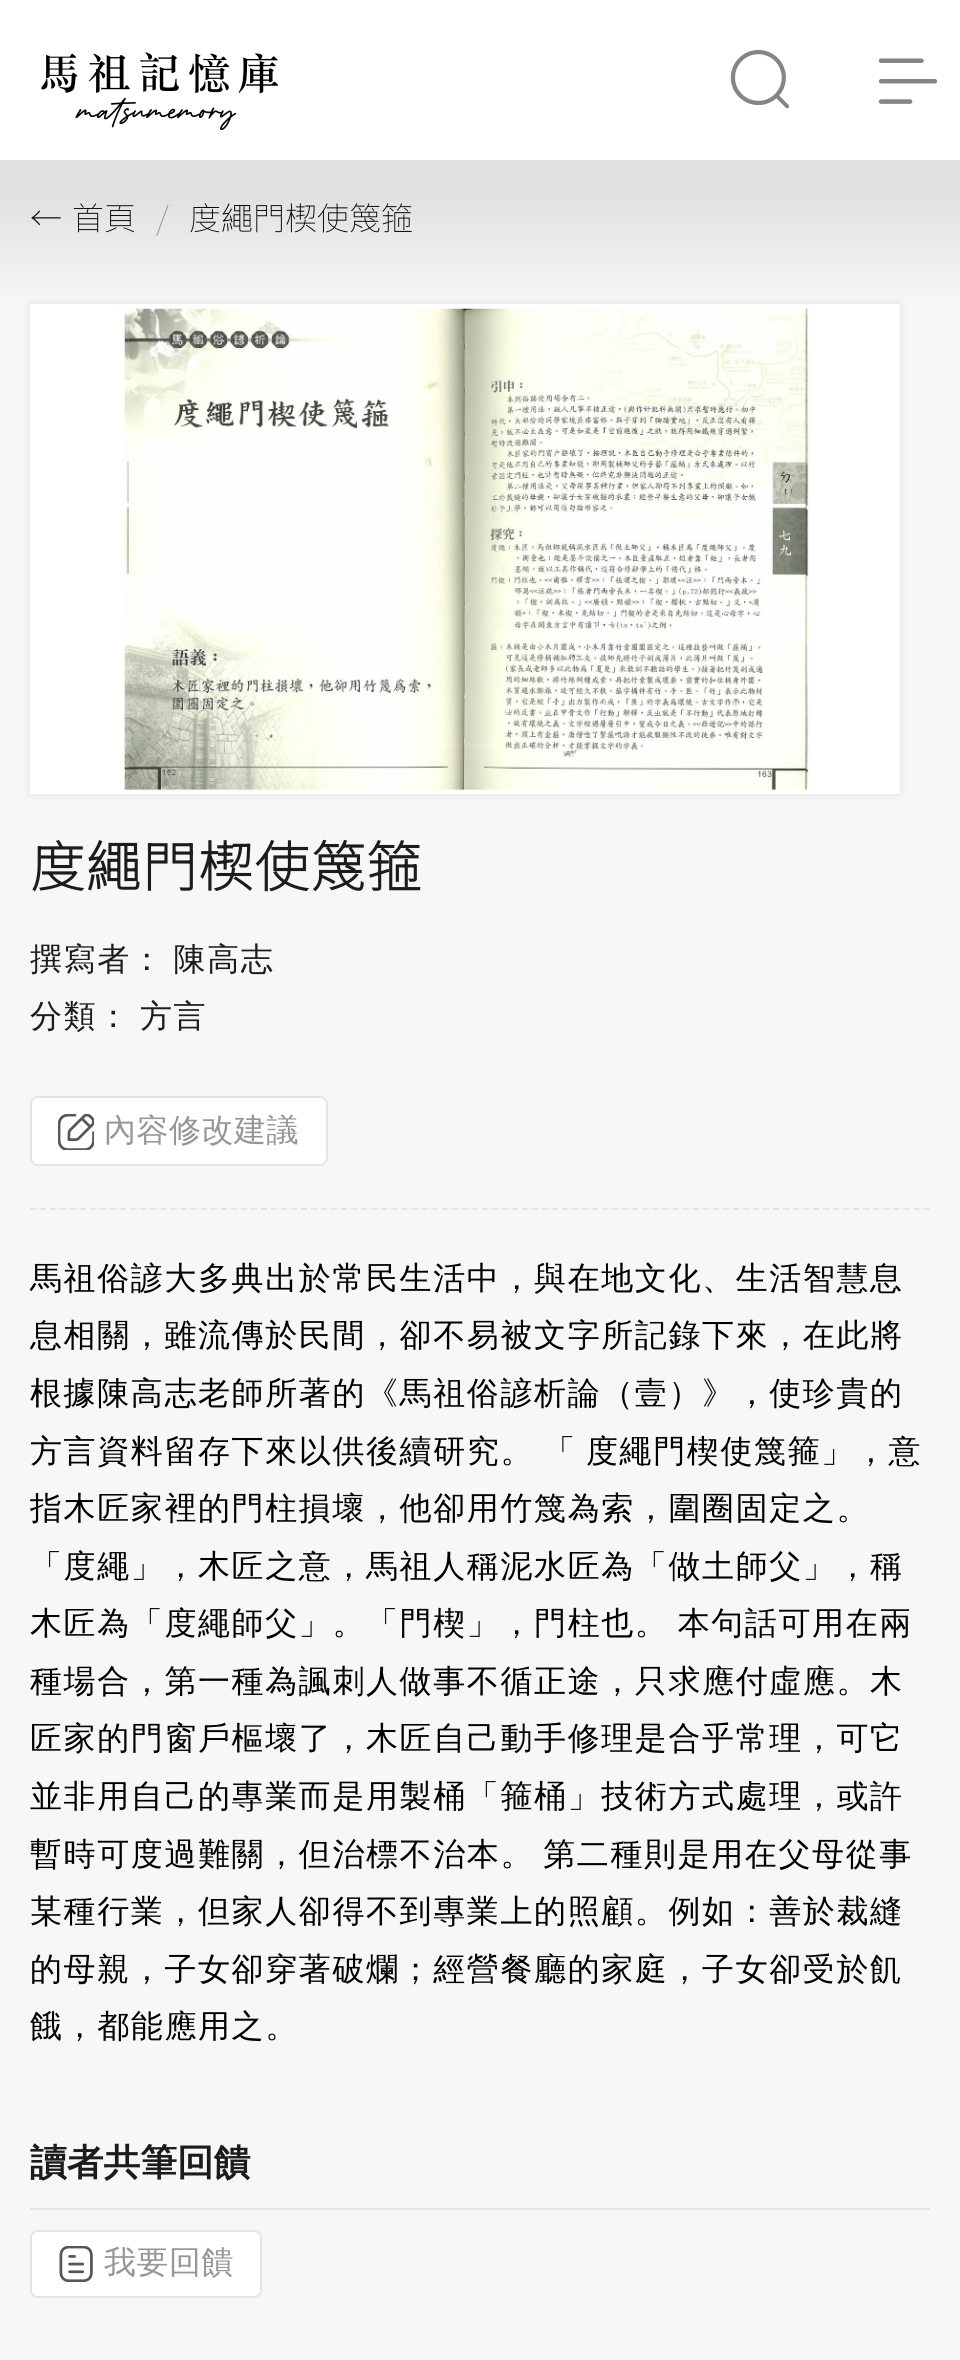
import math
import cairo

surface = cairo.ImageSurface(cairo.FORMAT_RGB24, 960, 2360)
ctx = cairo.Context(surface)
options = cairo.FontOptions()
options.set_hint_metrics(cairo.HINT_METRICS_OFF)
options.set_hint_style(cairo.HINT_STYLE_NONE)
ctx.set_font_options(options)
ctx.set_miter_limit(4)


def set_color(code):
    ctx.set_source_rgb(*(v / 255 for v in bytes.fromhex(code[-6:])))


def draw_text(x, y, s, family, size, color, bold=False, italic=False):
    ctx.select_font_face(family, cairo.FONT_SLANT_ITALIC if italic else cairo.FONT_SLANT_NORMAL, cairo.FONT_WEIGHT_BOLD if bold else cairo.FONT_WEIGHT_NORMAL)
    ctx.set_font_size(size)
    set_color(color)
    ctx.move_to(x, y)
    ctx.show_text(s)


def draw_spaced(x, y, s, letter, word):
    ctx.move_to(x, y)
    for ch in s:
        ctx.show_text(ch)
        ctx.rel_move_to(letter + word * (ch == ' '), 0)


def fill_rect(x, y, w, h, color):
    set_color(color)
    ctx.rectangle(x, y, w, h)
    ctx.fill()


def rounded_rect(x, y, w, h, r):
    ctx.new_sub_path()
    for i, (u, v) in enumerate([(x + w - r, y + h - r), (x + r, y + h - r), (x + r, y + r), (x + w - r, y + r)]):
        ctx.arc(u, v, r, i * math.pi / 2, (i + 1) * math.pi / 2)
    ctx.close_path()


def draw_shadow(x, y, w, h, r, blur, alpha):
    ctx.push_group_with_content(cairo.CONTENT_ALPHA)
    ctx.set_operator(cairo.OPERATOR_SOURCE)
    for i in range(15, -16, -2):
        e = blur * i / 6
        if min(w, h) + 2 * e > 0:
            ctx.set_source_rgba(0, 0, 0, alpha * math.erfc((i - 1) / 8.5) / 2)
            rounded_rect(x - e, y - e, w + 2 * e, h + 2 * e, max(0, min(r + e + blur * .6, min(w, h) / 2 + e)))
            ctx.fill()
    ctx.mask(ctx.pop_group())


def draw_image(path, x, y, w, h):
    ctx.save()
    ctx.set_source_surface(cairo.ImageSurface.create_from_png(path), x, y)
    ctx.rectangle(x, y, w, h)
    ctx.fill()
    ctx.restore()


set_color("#ffffff")
ctx.paint()
gradient = cairo.LinearGradient(480, 0, 480, 2360)
gradient.add_color_stop_rgba(0.08, 0.878, 0.878, 0.878, 1)
gradient.add_color_stop_rgba(0.13, 0.969, 0.969, 0.969, 1)
gradient.add_color_stop_rgba(1, 0.969, 0.969, 0.969, 1)
ctx.set_source(gradient)
ctx.rectangle(0, 160, 960, 2200)
ctx.fill()
draw_image("assets/img1.png", 41, 52, 238, 78)
draw_image("assets/img2.png", 730, 49, 60, 60)
draw_image("assets/img3.png", 878, 58, 60, 46)
draw_text(30, 230, "←", "Noto Sans TC Thin", 32, "#000000")
draw_text(72, 230, "首頁", "Noto Sans TC Thin", 32, "#000000")
draw_text(156, 230, "/", "Noto Sans TC Thin", 32, "#969696")
draw_text(189, 230, "度繩門楔使篾箍", "Noto Sans TC Thin", 32, "#000000")
ctx.new_path()
ctx.move_to(30, 1209)
ctx.line_to(930, 1209)
set_color("#e5e5e5")
ctx.set_dash([6, 4.04])
ctx.stroke()
set_color("#000000")
draw_shadow(30, 304, 870, 490, 0, 4, 0.1)
fill_rect(30, 304, 870, 490, "#ffffff")
draw_image("assets/img4.png", 123, 307, 686, 484)
ctx.select_font_face("Noto Sans TC", cairo.FONT_SLANT_NORMAL, cairo.FONT_WEIGHT_BOLD)
ctx.set_font_size(54.5)
set_color("#1c1c1c")
draw_spaced(30, 887, "度繩門楔使篾箍", 1.6, 0)
ctx.select_font_face("WenQuanYi Zen Hei Medium")
ctx.set_font_size(32)
draw_spaced(30, 970, "撰寫者： 陳高志", 1.6, -2)
draw_spaced(30, 1027, "分類： 方言", 1.6, -2)
set_color("#ffffff")
rounded_rect(31, 1097, 296, 68, 7)
ctx.fill_preserve()
set_color("#e4e4e4")
ctx.set_dash([])
ctx.stroke()
draw_image("assets/img5.png", 58, 1114, 36, 36)
set_color("#969696")
draw_spaced(104, 1141, "內容修改建議", 0.5, 0)
set_color("#000000")
draw_spaced(30, 1289, "馬祖俗諺大多典出於常民生活中，與在地文化、生活智慧息", 1.6, 0)
draw_spaced(30, 1346, "息相關，雖流傳於民間，卻不易被文字所記錄下來，在此將", 1.6, 0)
draw_spaced(30, 1404, "根據陳高志老師所著的《馬祖俗諺析論（壹）》，使珍貴的", 1.6, 0)
draw_spaced(30, 1462, "方言資料留存下來以供後續研究。 「 度繩門楔使篾箍」，意", 1.6, -2)
draw_spaced(30, 1519, "指木匠家裡的門柱損壞，他卻用竹篾為索，圍圈固定之。", 1.6, 0)
draw_spaced(30, 1577, "「度繩」，木匠之意，馬祖人稱泥水匠為「做土師父」，稱", 1.6, 0)
draw_spaced(30, 1634, "木匠為「度繩師父」。「門楔」，門柱也。 本句話可用在兩", 1.6, -2)
draw_spaced(30, 1692, "種場合，第一種為諷刺人做事不循正途，只求應付虛應。木", 1.6, 0)
draw_spaced(30, 1749, "匠家的門窗戶樞壞了，木匠自己動手修理是合乎常理，可它", 1.6, 0)
draw_spaced(30, 1807, "並非用自己的專業而是用製桶「箍桶」技術方式處理，或許", 1.6, 0)
draw_spaced(30, 1865, "暫時可度過難關，但治標不治本。 第二種則是用在父母從事", 1.6, -2)
draw_spaced(30, 1922, "某種行業，但家人卻得不到專業上的照顧。例如：善於裁縫", 1.6, 0)
draw_spaced(30, 1980, "的母親，子女卻穿著破爛；經營餐廳的家庭，子女卻受於飢", 1.6, 0)
draw_spaced(30, 2037, "餓，都能應用之。", 1.6, 0)
fill_rect(30, 2208, 900, 2, "#e5e5e5")
draw_text(30, 2175, "讀者共筆回饋", "WenQuanYi Zen Hei", 36.75, "#1c1c1c", bold=True)
set_color("#ffffff")
rounded_rect(31, 2231, 230, 66, 7)
ctx.fill_preserve()
set_color("#e4e4e4")
ctx.stroke()
draw_image("assets/img6.png", 59, 2246, 34, 36)
ctx.select_font_face("WenQuanYi Zen Hei Medium")
ctx.set_font_size(32)
set_color("#969696")
draw_spaced(104, 2273, "我要回饋", 0.5, 0)
surface.write_to_png("output.png")
